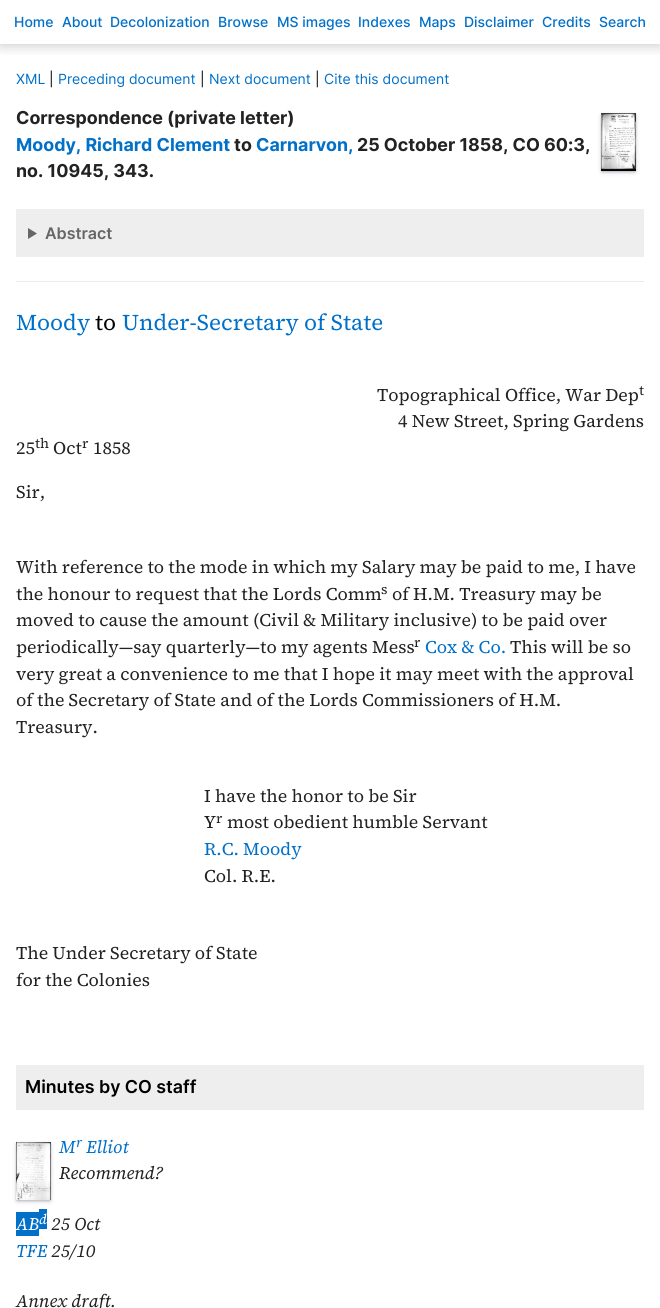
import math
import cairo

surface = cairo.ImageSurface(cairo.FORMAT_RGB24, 660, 1308)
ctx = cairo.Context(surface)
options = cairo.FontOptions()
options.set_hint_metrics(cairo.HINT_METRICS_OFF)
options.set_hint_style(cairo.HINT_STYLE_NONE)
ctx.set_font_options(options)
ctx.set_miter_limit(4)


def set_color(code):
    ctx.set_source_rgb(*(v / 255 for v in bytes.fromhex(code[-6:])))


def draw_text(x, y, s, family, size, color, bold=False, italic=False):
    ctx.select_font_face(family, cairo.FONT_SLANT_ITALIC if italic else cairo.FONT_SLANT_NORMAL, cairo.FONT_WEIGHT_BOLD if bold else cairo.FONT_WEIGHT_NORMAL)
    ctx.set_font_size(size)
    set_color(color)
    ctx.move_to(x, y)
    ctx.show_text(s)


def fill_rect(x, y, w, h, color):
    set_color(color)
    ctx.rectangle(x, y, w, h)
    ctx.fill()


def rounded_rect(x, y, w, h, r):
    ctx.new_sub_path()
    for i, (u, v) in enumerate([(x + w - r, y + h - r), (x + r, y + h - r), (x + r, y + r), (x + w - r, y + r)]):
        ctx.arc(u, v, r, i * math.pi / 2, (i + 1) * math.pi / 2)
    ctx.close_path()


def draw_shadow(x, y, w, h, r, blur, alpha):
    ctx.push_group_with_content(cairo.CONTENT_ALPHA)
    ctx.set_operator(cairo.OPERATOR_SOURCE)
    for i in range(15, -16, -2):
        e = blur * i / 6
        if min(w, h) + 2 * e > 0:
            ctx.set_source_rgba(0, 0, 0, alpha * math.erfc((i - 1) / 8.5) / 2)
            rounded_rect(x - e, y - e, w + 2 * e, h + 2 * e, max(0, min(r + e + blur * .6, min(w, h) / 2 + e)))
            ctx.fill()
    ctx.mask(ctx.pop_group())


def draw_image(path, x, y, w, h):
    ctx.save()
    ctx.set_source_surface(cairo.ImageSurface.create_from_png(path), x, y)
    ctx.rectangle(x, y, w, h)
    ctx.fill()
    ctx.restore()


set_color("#ffffff")
ctx.paint()
ctx.save()
ctx.rectangle(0, 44, 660, 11)
ctx.clip()
set_color("#000000")
draw_shadow(0, 0, 660, 44, 0, 7.5, 0.25)
ctx.restore()
draw_text(14, 27, "Home", "Inter Medium", 14, "#0070c9")
draw_text(62, 27, "About", "Inter Medium", 14, "#0070c9")
draw_text(110, 27, "Decolonization", "Inter Medium", 14, "#0070c9")
draw_text(218, 27, "Browse", "Inter Medium", 14, "#0070c9")
draw_text(277, 27, "MS images", "Inter Medium", 14, "#0070c9")
draw_text(358, 27, "Indexes", "Inter Medium", 14, "#0070c9")
draw_text(419, 27, "Maps", "Inter Medium", 14, "#0070c9")
draw_text(464, 27, "Disclaimer", "Inter Medium", 14, "#0070c9")
draw_text(542, 27, "Credits", "Inter Medium", 14, "#0070c9")
draw_text(599, 27, "Search", "Inter Medium", 14, "#0070c9")
draw_text(16, 84, "XML", "Inter", 14, "#0070c9")
draw_text(49, 84, "|", "Inter", 14, "#000000")
draw_text(58, 84, "Preceding document", "Inter", 14, "#0070c9")
draw_text(200, 84, "|", "Inter", 14, "#000000")
draw_text(209, 84, "Next document", "Inter", 14, "#0070c9")
draw_text(315, 84, "|", "Inter", 14, "#000000")
draw_text(324, 84, "Cite this document", "Inter", 14, "#0070c9")
fill_rect(16, 281, 628, 1, "#ebebeb")
draw_text(16, 124, "Correspondence (private letter)", "Inter", 17.8, "#222222", bold=True)
draw_text(16, 151, "Moody, Richard Clement", "Inter", 17.8, "#0070c9", bold=True)
draw_text(234, 151, "to", "Inter", 17.8, "#222222", bold=True)
draw_text(256, 151, "Carnarvon,", "Inter", 17.8, "#0070c9", bold=True)
draw_text(357, 151, "25 October 1858, CO 60:3,", "Inter", 17.8, "#222222", bold=True)
draw_text(16, 177, "no. 10945, 343.", "Inter", 17.8, "#222222", bold=True)
set_color("#000000")
draw_shadow(602, 115, 33, 56, 0, 1.5, 0.3)
set_color("#32325d")
draw_shadow(602, 116, 33, 56, 0, 2.5, 0.25)
draw_image("assets/img1.png", 601, 113, 35, 58)
fill_rect(16, 209, 628, 48, "#eeeeee")
set_color("#666666")
ctx.new_path()
ctx.move_to(28, 228)
ctx.line_to(37, 233.5)
ctx.line_to(28, 239)
ctx.close_path()
ctx.fill()
draw_text(45, 239, "Abstract", "Inter SemiBold", 16, "#666666")
draw_text(16, 330, "Moody", "Source Serif 4", 22.5, "#0070c9")
draw_text(95, 330, "to", "Source Serif 4", 22.5, "#000000")
draw_text(122, 330, "Under-Secretary of State", "Source Serif 4", 22.5, "#0070c9")
draw_text(377, 401, "Topographical Office, War Dep", "Source Serif 4", 17.8, "#222222")
draw_text(639, 395, "t", "Source Serif 4", 14, "#222222")
draw_text(398, 427, "4 New Street, Spring Gardens", "Source Serif 4", 17.8, "#222222")
draw_text(16, 454, "25", "Source Serif 4", 17.8, "#222222")
draw_text(35, 448, "th", "Source Serif 4", 14, "#222222")
draw_text(53, 454, "Oct", "Source Serif 4", 17.8, "#222222")
draw_text(82, 448, "r", "Source Serif 4", 14, "#222222")
draw_text(93, 454, "1858", "Source Serif 4", 17.8, "#222222")
draw_text(16, 498, "Sir,", "Source Serif 4", 17.8, "#222222")
draw_text(16, 573, "With reference to the mode in which my Salary may be paid to me, I have", "Source Serif 4", 17.8, "#222222")
draw_text(16, 600, "the honour to request that the Lords Comm", "Source Serif 4", 17.8, "#222222")
draw_text(381, 594, "s", "Source Serif 4", 14, "#222222")
draw_text(392, 600, "of H.M. Treasury may be", "Source Serif 4", 17.8, "#222222")
draw_text(16, 626, "moved to cause the amount (Civil & Military inclusive) to be paid over", "Source Serif 4", 17.8, "#222222")
draw_text(16, 653, "periodically—say quarterly—to my agents Mess", "Source Serif 4", 17.8, "#222222")
draw_text(414, 647, "r", "Source Serif 4", 14, "#222222")
draw_text(425, 653, "Cox & Co.", "Source Serif 4", 17.8, "#0070c9")
draw_text(510, 653, "This will be so", "Source Serif 4", 17.8, "#222222")
draw_text(16, 680, "very great a convenience to me that I hope it may meet with the approval", "Source Serif 4", 17.8, "#222222")
draw_text(16, 706, "of the Secretary of State and of the Lords Commissioners of H.M.", "Source Serif 4", 17.8, "#222222")
draw_text(16, 733, "Treasury.", "Source Serif 4", 17.8, "#222222")
draw_text(204, 802, "I have the honor to be Sir", "Source Serif 4", 17.8, "#222222")
draw_text(204, 828, "Y", "Source Serif 4", 17.8, "#222222")
draw_text(216, 823, "r", "Source Serif 4", 14, "#222222")
draw_text(227, 828, "most obedient humble Servant", "Source Serif 4", 17.8, "#222222")
draw_text(204, 855, "R.C. Moody", "Source Serif 4", 17.8, "#0070c9")
draw_text(204, 882, "Col. R.E.", "Source Serif 4", 17.8, "#222222")
draw_text(16, 959, "The Under Secretary of State", "Source Serif 4", 17.8, "#222222")
draw_text(16, 986, "for the Colonies", "Source Serif 4", 17.8, "#222222")
fill_rect(16, 1065, 628, 45, "#eeeeee")
draw_text(25, 1093, "Minutes by CO staff", "Inter SemiBold", 17.8, "#000000")
set_color("#000000")
draw_shadow(17, 1144, 33, 56, 0, 1.5, 0.3)
set_color("#32325d")
draw_shadow(17, 1145, 33, 56, 0, 2.5, 0.25)
draw_image("assets/img2.png", 16, 1142, 35, 58)
draw_text(59, 1153, "M", "Source Serif 4", 17.8, "#0070c9", italic=True)
draw_text(76, 1147, "r", "Source Serif 4", 14, "#0070c9", italic=True)
draw_text(86, 1153, "Elliot", "Source Serif 4", 17.8, "#0070c9", italic=True)
draw_text(59, 1179, "Recommend?", "Source Serif 4", 17.8, "#222222", italic=True)
fill_rect(16, 1212, 23, 24, "#0070c9")
draw_text(16, 1230, "AB", "Source Serif 4", 17.8, "#ffffff", italic=True)
fill_rect(39, 1209, 8, 20, "#0070c9")
draw_text(39, 1224, "d", "Source Serif 4", 14, "#ffffff", italic=True)
draw_text(51, 1230, "25 Oct", "Source Serif 4", 17.8, "#222222", italic=True)
draw_text(16, 1257, "TFE", "Source Serif 4", 17.8, "#0070c9", italic=True)
draw_text(51, 1257, "25/10", "Source Serif 4", 17.8, "#222222", italic=True)
draw_text(16, 1307, "Annex draft.", "Source Serif 4", 17.8, "#222222", italic=True)
surface.write_to_png("output.png")
